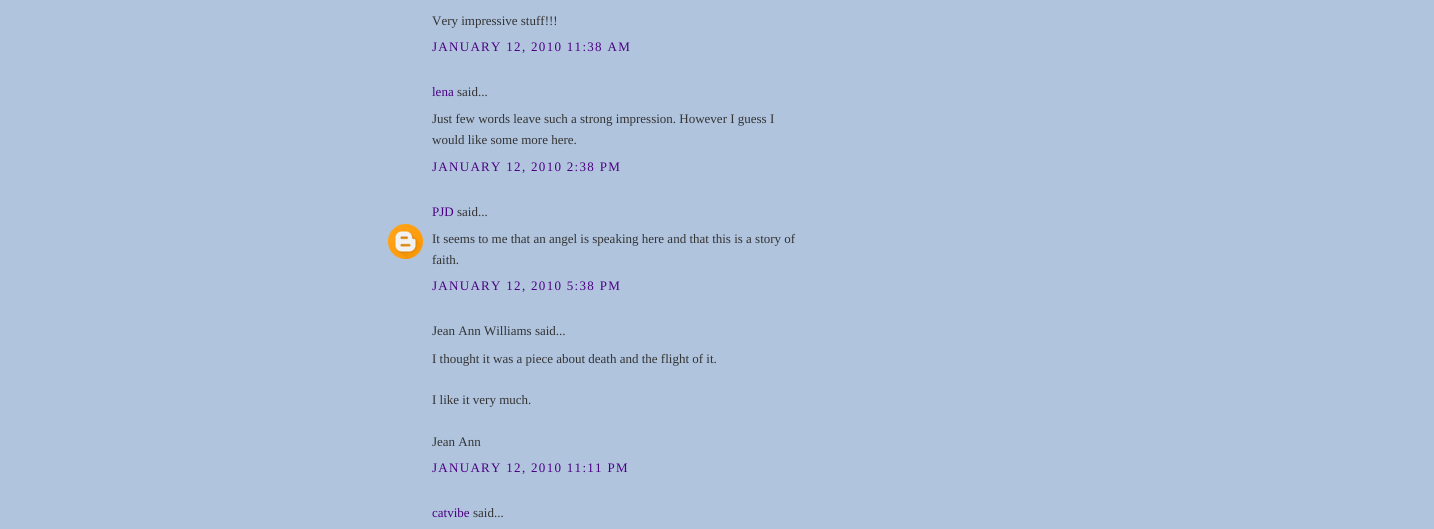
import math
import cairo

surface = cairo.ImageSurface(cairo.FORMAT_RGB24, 1434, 529)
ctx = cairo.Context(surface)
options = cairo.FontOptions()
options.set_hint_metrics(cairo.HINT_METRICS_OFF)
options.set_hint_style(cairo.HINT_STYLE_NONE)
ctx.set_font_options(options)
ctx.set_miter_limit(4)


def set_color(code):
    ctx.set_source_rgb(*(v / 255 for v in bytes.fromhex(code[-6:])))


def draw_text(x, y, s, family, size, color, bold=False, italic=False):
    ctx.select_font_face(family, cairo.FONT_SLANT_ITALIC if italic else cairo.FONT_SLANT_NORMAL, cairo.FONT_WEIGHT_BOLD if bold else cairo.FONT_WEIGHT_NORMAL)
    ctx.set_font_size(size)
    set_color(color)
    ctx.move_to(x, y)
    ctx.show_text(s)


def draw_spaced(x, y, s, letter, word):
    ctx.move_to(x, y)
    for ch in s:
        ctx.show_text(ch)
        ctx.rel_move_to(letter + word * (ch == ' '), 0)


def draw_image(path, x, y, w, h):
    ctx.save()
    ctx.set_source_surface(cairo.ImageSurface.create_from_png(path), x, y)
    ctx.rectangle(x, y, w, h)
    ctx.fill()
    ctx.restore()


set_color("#b0c4de")
ctx.paint()
draw_text(432, 25, "Very impressive stuff!!!", "Liberation Serif", 13, "#333333")
set_color("#4b0082")
draw_spaced(432, 51, "JANUARY 12, 2010 11:38 AM", 1.3, 0)
draw_text(432, 96, "lena", "Liberation Serif", 13, "#4b0082")
draw_text(457, 96, "said...", "Liberation Serif", 13, "#333333")
draw_text(432, 123, "Just few words leave such a strong impression. However I guess I", "Liberation Serif", 13, "#333333")
draw_text(432, 144, "would like some more here.", "Liberation Serif", 13, "#333333")
set_color("#4b0082")
draw_spaced(432, 171, "JANUARY 12, 2010 2:38 PM", 1.3, 0)
draw_text(432, 216, "PJD", "Liberation Serif", 13, "#4b0082")
draw_text(457, 216, "said...", "Liberation Serif", 13, "#333333")
draw_image("assets/img1.png", 388, 224, 35, 35)
draw_text(432, 243, "It seems to me that an angel is speaking here and that this is a story of", "Liberation Serif", 13, "#333333")
draw_text(432, 264, "faith.", "Liberation Serif", 13, "#333333")
set_color("#4b0082")
draw_spaced(432, 290, "JANUARY 12, 2010 5:38 PM", 1.3, 0)
draw_text(432, 335, "Jean Ann Williams said...", "Liberation Serif", 13, "#333333")
draw_text(432, 363, "I thought it was a piece about death and the flight of it.", "Liberation Serif", 13, "#333333")
draw_text(432, 404, "I like it very much.", "Liberation Serif", 13, "#333333")
draw_text(432, 446, "Jean Ann", "Liberation Serif", 13, "#333333")
set_color("#4b0082")
draw_spaced(432, 472, "JANUARY 12, 2010 11:11 PM", 1.3, 0)
draw_text(432, 517, "catvibe", "Liberation Serif", 13, "#4b0082")
draw_text(473, 517, "said...", "Liberation Serif", 13, "#333333")
surface.write_to_png("output.png")
